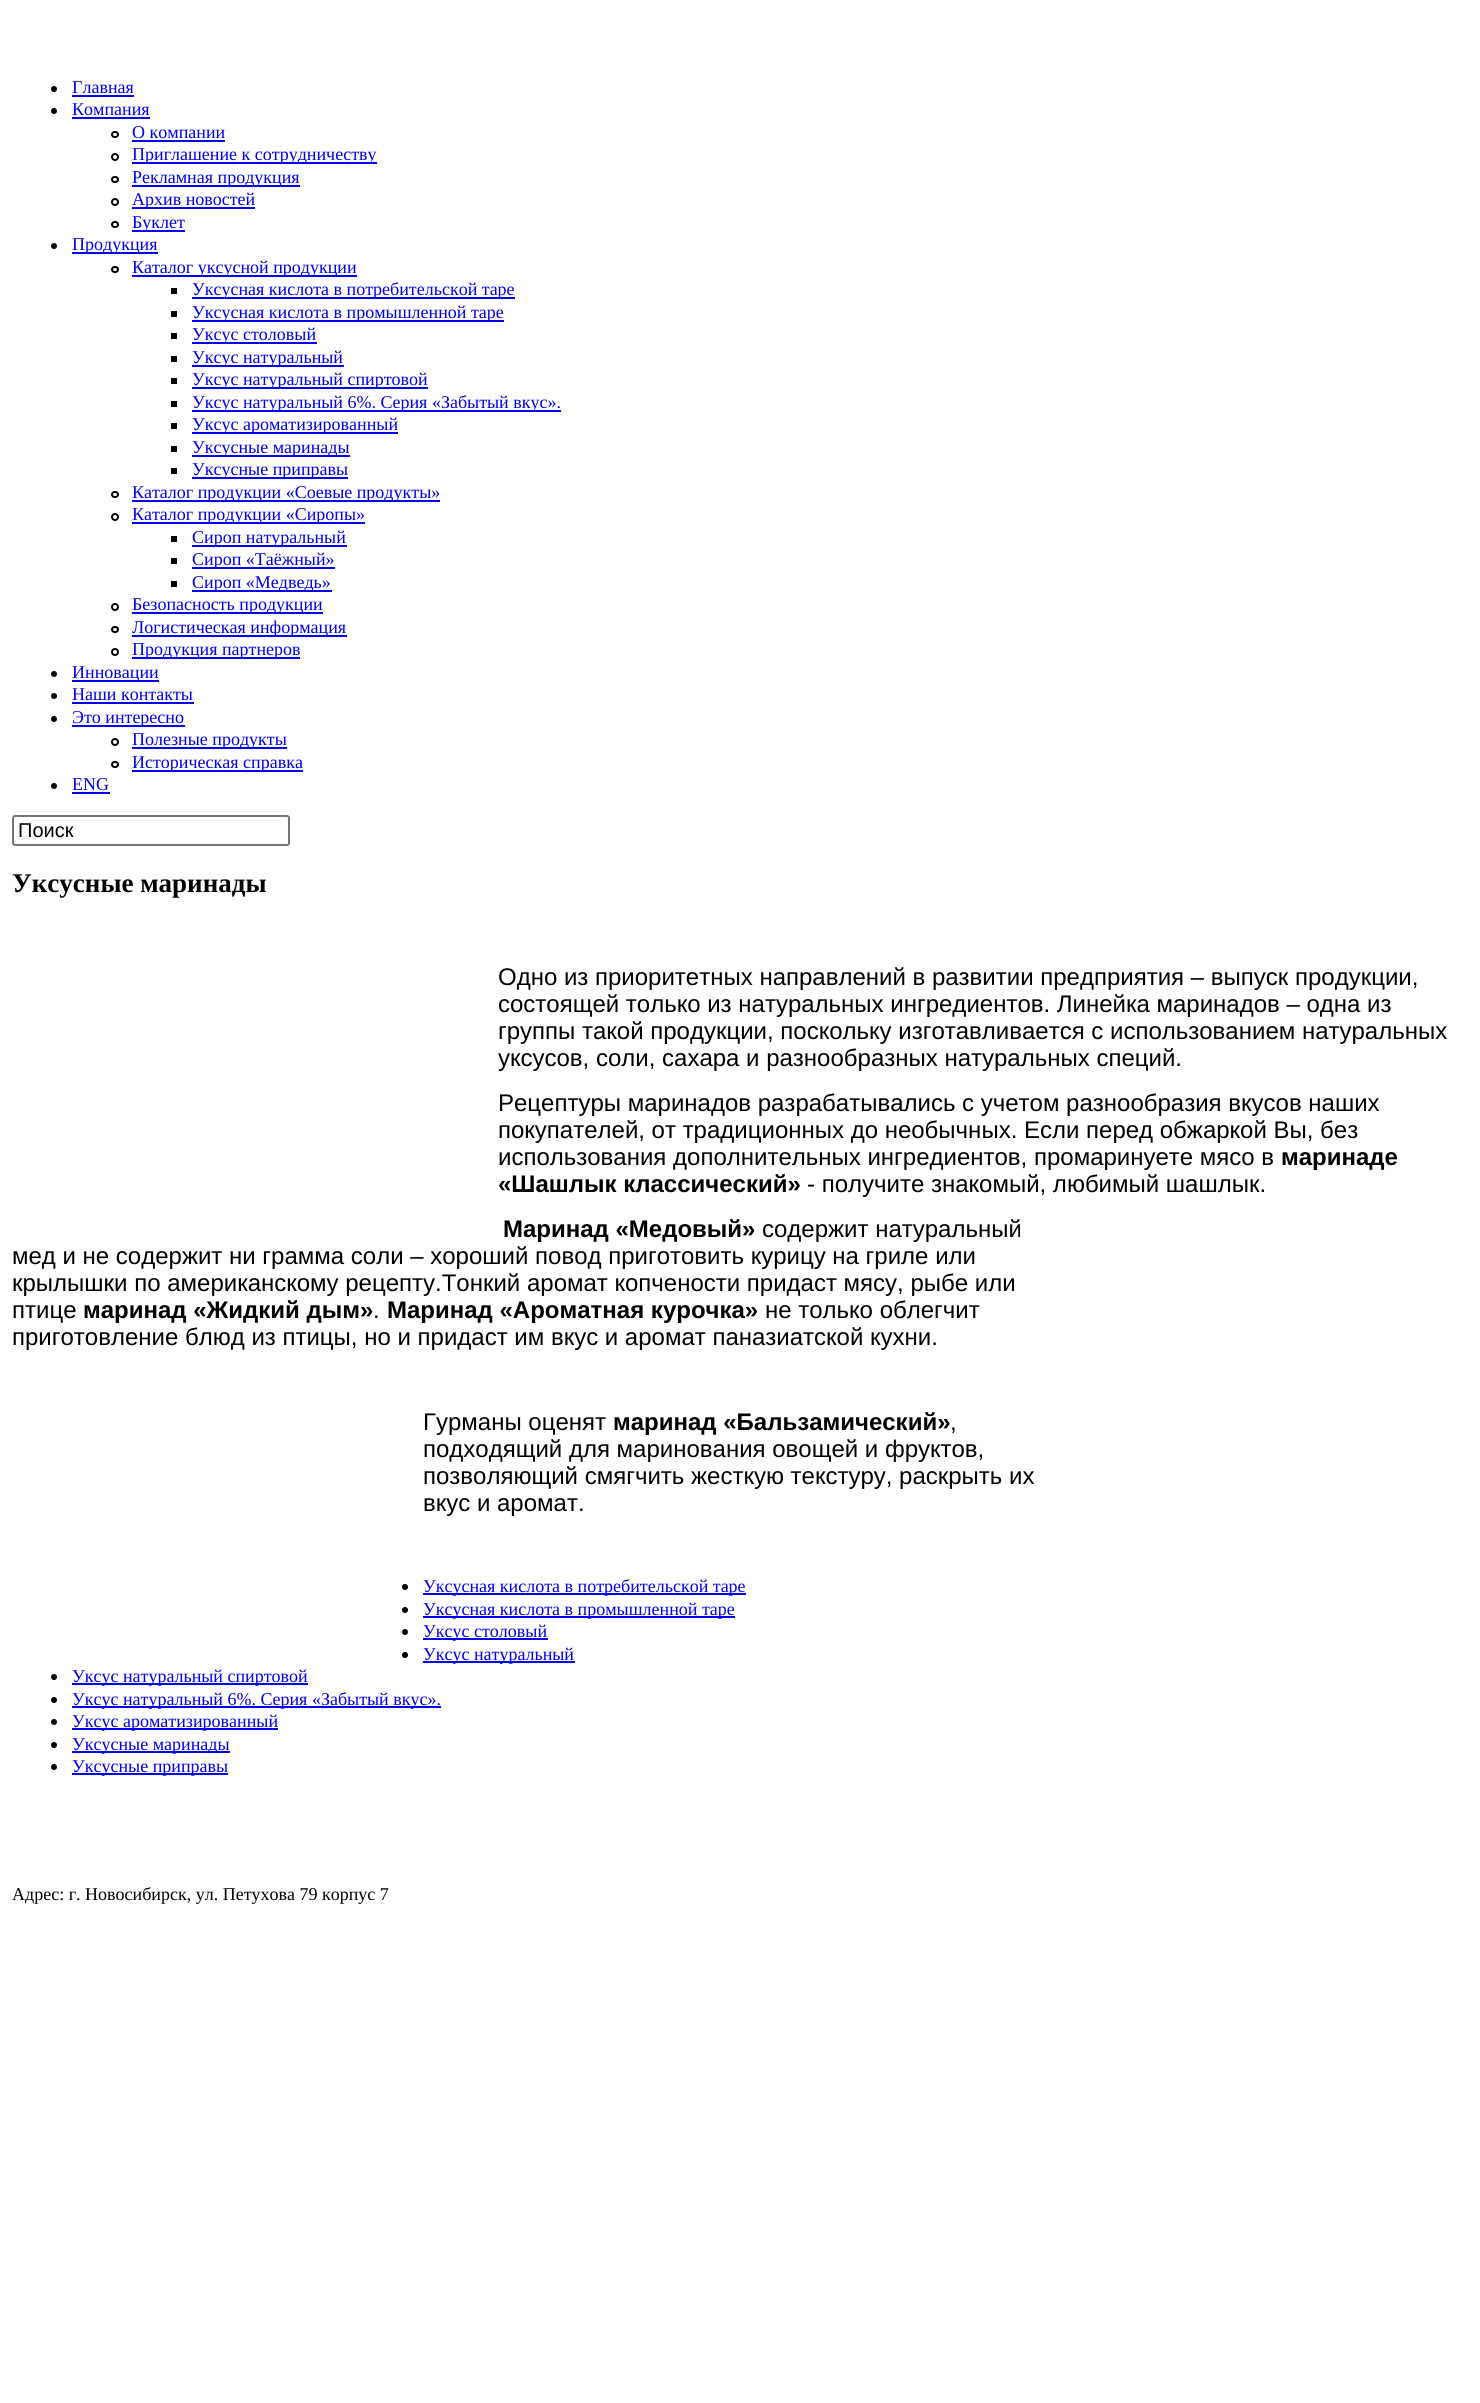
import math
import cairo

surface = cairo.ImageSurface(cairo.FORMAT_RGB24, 1480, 2403)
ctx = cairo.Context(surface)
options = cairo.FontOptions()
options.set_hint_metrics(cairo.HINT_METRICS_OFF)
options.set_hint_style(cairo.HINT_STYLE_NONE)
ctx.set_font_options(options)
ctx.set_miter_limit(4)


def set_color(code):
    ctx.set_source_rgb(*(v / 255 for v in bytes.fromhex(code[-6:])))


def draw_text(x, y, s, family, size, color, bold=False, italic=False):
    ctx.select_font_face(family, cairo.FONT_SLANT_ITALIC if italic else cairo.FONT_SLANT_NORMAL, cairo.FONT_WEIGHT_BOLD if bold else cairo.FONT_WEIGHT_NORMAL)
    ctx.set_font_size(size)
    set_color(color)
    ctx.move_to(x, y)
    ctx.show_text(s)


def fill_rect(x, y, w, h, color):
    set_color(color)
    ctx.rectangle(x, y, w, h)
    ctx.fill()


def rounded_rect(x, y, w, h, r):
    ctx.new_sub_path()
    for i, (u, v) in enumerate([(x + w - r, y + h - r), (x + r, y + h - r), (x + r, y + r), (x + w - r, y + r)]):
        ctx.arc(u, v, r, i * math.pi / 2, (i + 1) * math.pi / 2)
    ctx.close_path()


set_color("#ffffff")
ctx.paint()
set_color("#000000")
ctx.arc(54, 89, 3, 0, 2 * math.pi)
ctx.fill()
draw_text(72, 93, "Главная", "Liberation Serif", 18, "#0000ee")
fill_rect(72, 95, 62, 2, "#0000ee")
set_color("#000000")
ctx.new_path()
ctx.arc(54, 111, 3, 0, 2 * math.pi)
ctx.fill()
draw_text(72, 115, "Компания", "Liberation Serif", 18, "#0000ee")
fill_rect(72, 117, 78, 2, "#0000ee")
rounded_rect(112, 132, 6, 5, 2.5)
set_color("#000000")
ctx.stroke()
draw_text(132, 138, "О компании", "Liberation Serif", 18, "#0000ee")
fill_rect(132, 140, 93, 2, "#0000ee")
ctx.new_path()
ctx.arc(115, 157, 3, 0, 2 * math.pi)
set_color("#000000")
ctx.stroke()
fill_rect(132, 162, 245, 2, "#0000ee")
draw_text(132, 160, "Приглашение к сотрудничеству", "Liberation Serif", 18, "#0000ee")
rounded_rect(112, 177, 6, 5, 2.5)
set_color("#000000")
ctx.stroke()
fill_rect(132, 185, 168, 2, "#0000ee")
draw_text(132, 183, "Рекламная продукция", "Liberation Serif", 18, "#0000ee")
ctx.new_path()
ctx.arc(115, 202, 3, 0, 2 * math.pi)
set_color("#000000")
ctx.stroke()
fill_rect(132, 207, 123, 2, "#0000ee")
draw_text(132, 205, "Архив новостей", "Liberation Serif", 18, "#0000ee")
rounded_rect(112, 222, 6, 5, 2.5)
set_color("#000000")
ctx.stroke()
fill_rect(132, 230, 53, 2, "#0000ee")
draw_text(132, 228, "Буклет", "Liberation Serif", 18, "#0000ee")
set_color("#000000")
ctx.new_path()
ctx.arc(54, 246, 3, 0, 2 * math.pi)
ctx.fill()
fill_rect(72, 252, 86, 2, "#0000ee")
draw_text(72, 250, "Продукция", "Liberation Serif", 18, "#0000ee")
rounded_rect(112, 267, 6, 5, 2.5)
set_color("#000000")
ctx.stroke()
fill_rect(132, 275, 225, 2, "#0000ee")
draw_text(132, 273, "Каталог уксусной продукции", "Liberation Serif", 18, "#0000ee")
fill_rect(171, 288, 6, 6, "#000000")
fill_rect(192, 297, 323, 2, "#0000ee")
draw_text(192, 295, "Уксусная кислота в потребительской таре", "Liberation Serif", 18, "#0000ee")
fill_rect(171, 311, 6, 6, "#000000")
fill_rect(192, 320, 312, 2, "#0000ee")
draw_text(192, 318, "Уксусная кислота в промышленной таре", "Liberation Serif", 18, "#0000ee")
fill_rect(171, 333, 6, 6, "#000000")
fill_rect(192, 342, 125, 2, "#0000ee")
draw_text(192, 340, "Уксус столовый", "Liberation Serif", 18, "#0000ee")
fill_rect(171, 356, 6, 6, "#000000")
fill_rect(192, 365, 152, 2, "#0000ee")
draw_text(192, 363, "Уксус натуральный", "Liberation Serif", 18, "#0000ee")
fill_rect(171, 378, 6, 6, "#000000")
fill_rect(192, 387, 236, 2, "#0000ee")
draw_text(192, 385, "Уксус натуральный спиртовой", "Liberation Serif", 18, "#0000ee")
fill_rect(171, 401, 6, 6, "#000000")
fill_rect(192, 410, 369, 2, "#0000ee")
draw_text(192, 408, "Уксус натуральный 6%. Серия «Забытый вкус».", "Liberation Serif", 18, "#0000ee")
fill_rect(171, 423, 6, 6, "#000000")
fill_rect(192, 432, 206, 2, "#0000ee")
draw_text(192, 430, "Уксус ароматизированный", "Liberation Serif", 18, "#0000ee")
fill_rect(171, 446, 6, 6, "#000000")
fill_rect(192, 455, 158, 2, "#0000ee")
draw_text(192, 453, "Уксусные маринады", "Liberation Serif", 18, "#0000ee")
fill_rect(171, 468, 6, 6, "#000000")
fill_rect(192, 477, 156, 2, "#0000ee")
draw_text(192, 475, "Уксусные приправы", "Liberation Serif", 18, "#0000ee")
rounded_rect(112, 492, 6, 5, 2.5)
set_color("#000000")
ctx.stroke()
fill_rect(132, 500, 308, 2, "#0000ee")
draw_text(132, 498, "Каталог продукции «Соевые продукты»", "Liberation Serif", 18, "#0000ee")
ctx.new_path()
ctx.arc(115, 517, 3, 0, 2 * math.pi)
set_color("#000000")
ctx.stroke()
fill_rect(132, 522, 233, 2, "#0000ee")
draw_text(132, 520, "Каталог продукции «Сиропы»", "Liberation Serif", 18, "#0000ee")
fill_rect(171, 536, 6, 6, "#000000")
fill_rect(192, 545, 155, 2, "#0000ee")
draw_text(192, 543, "Сироп натуральный", "Liberation Serif", 18, "#0000ee")
fill_rect(171, 558, 6, 6, "#000000")
fill_rect(192, 567, 143, 2, "#0000ee")
draw_text(192, 565, "Сироп «Таёжный»", "Liberation Serif", 18, "#0000ee")
fill_rect(171, 581, 6, 6, "#000000")
fill_rect(192, 590, 140, 2, "#0000ee")
draw_text(192, 588, "Сироп «Медведь»", "Liberation Serif", 18, "#0000ee")
ctx.new_path()
ctx.arc(115, 607, 3, 0, 2 * math.pi)
set_color("#000000")
ctx.stroke()
fill_rect(132, 612, 191, 2, "#0000ee")
draw_text(132, 610, "Безопасность продукции", "Liberation Serif", 18, "#0000ee")
rounded_rect(112, 627, 6, 5, 2.5)
set_color("#000000")
ctx.stroke()
fill_rect(132, 635, 215, 2, "#0000ee")
draw_text(132, 633, "Логистическая информация", "Liberation Serif", 18, "#0000ee")
ctx.new_path()
ctx.arc(115, 652, 3, 0, 2 * math.pi)
set_color("#000000")
ctx.stroke()
fill_rect(132, 657, 168, 2, "#0000ee")
draw_text(132, 655, "Продукция партнеров", "Liberation Serif", 18, "#0000ee")
set_color("#000000")
ctx.new_path()
ctx.arc(54, 674, 3, 0, 2 * math.pi)
ctx.fill()
fill_rect(72, 680, 87, 2, "#0000ee")
draw_text(72, 678, "Инновации", "Liberation Serif", 18, "#0000ee")
set_color("#000000")
ctx.new_path()
ctx.arc(54, 696, 3, 0, 2 * math.pi)
ctx.fill()
draw_text(72, 700, "Наши контакты", "Liberation Serif", 18, "#0000ee")
fill_rect(72, 702, 122, 2, "#0000ee")
set_color("#000000")
ctx.new_path()
ctx.arc(54, 719, 3, 0, 2 * math.pi)
ctx.fill()
fill_rect(72, 725, 113, 2, "#0000ee")
draw_text(72, 723, "Это интересно", "Liberation Serif", 18, "#0000ee")
ctx.new_path()
ctx.arc(115, 742, 3, 0, 2 * math.pi)
set_color("#000000")
ctx.stroke()
fill_rect(132, 747, 155, 2, "#0000ee")
draw_text(132, 745, "Полезные продукты", "Liberation Serif", 18, "#0000ee")
rounded_rect(112, 762, 6, 5, 2.5)
set_color("#000000")
ctx.stroke()
fill_rect(132, 770, 171, 2, "#0000ee")
draw_text(132, 768, "Историческая справка", "Liberation Serif", 18, "#0000ee")
set_color("#000000")
ctx.new_path()
ctx.arc(54, 786, 3, 0, 2 * math.pi)
ctx.fill()
draw_text(72, 790, "ENG", "Liberation Serif", 18, "#0000ee")
fill_rect(72, 792, 38, 2, "#0000ee")
rounded_rect(13, 816, 276, 29, 2)
set_color("#767676")
ctx.stroke()
draw_text(18, 837, "Поиск", "Liberation Sans", 20, "#000000")
draw_text(12, 892, "Уксусные маринады", "Liberation Serif", 27, "#000000", bold=True)
draw_text(498, 985, "Одно из приоритетных направлений в развитии предприятия – выпуск продукции,", "Liberation Sans", 24, "#000000")
draw_text(498, 1012, "состоящей только из натуральных ингредиентов. Линейка маринадов – одна из", "Liberation Sans", 24, "#000000")
draw_text(498, 1039, "группы такой продукции, поскольку изготавливается с использованием натуральных", "Liberation Sans", 24, "#000000")
draw_text(498, 1066, "уксусов, соли, сахара и разнообразных натуральных специй.", "Liberation Sans", 24, "#000000")
draw_text(498, 1111, "Рецептуры маринадов разрабатывались с учетом разнообразия вкусов наших", "Liberation Sans", 24, "#000000")
draw_text(498, 1138, "покупателей, от традиционных до необычных. Если перед обжаркой Вы, без", "Liberation Sans", 24, "#000000")
draw_text(498, 1165, "использования дополнительных ингредиентов, промаринуете мясо в", "Liberation Sans", 24, "#000000")
draw_text(1281, 1165, "маринаде", "Liberation Sans", 24, "#000000", bold=True)
draw_text(498, 1192, "«Шашлык классический»", "Liberation Sans", 24, "#000000", bold=True)
draw_text(807, 1192, "- получите знакомый, любимый шашлык.", "Liberation Sans", 24, "#000000")
draw_text(503, 1237, "Маринад «Медовый»", "Liberation Sans", 24, "#000000", bold=True)
draw_text(762, 1237, "содержит натуральный", "Liberation Sans", 24, "#000000")
draw_text(12, 1264, "мед и не содержит ни грамма соли – хороший повод приготовить курицу на гриле или", "Liberation Sans", 24, "#000000")
draw_text(12, 1291, "крылышки по американскому рецепту.Тонкий аромат копчености придаст мясу, рыбе или", "Liberation Sans", 24, "#000000")
draw_text(12, 1318, "птице", "Liberation Sans", 24, "#000000")
draw_text(83, 1318, "маринад «Жидкий дым»", "Liberation Sans", 24, "#000000", bold=True)
draw_text(373, 1318, ".", "Liberation Sans", 24, "#000000")
draw_text(387, 1318, "Маринад «Ароматная курочка»", "Liberation Sans", 24, "#000000", bold=True)
draw_text(765, 1318, "не только облегчит", "Liberation Sans", 24, "#000000")
draw_text(12, 1345, "приготовление блюд из птицы, но и придаст им вкус и аромат паназиатской кухни.", "Liberation Sans", 24, "#000000")
draw_text(423, 1430, "Гурманы оценят", "Liberation Sans", 24, "#000000")
draw_text(613, 1430, "маринад «Бальзамический»", "Liberation Sans", 24, "#000000", bold=True)
draw_text(950, 1430, ",", "Liberation Sans", 24, "#000000")
draw_text(423, 1457, "подходящий для маринования овощей и фруктов,", "Liberation Sans", 24, "#000000")
draw_text(423, 1484, "позволяющий смягчить жесткую текстуру, раскрыть их", "Liberation Sans", 24, "#000000")
draw_text(423, 1511, "вкус и аромат.", "Liberation Sans", 24, "#000000")
ctx.new_path()
ctx.arc(405, 1587, 3, 0, 2 * math.pi)
ctx.fill()
fill_rect(423, 1593, 323, 2, "#0000ee")
draw_text(423, 1592, "Уксусная кислота в потребительской таре", "Liberation Serif", 18, "#0000ee")
set_color("#000000")
ctx.new_path()
ctx.arc(405, 1610, 3, 0, 2 * math.pi)
ctx.fill()
fill_rect(423, 1616, 312, 2, "#0000ee")
draw_text(423, 1615, "Уксусная кислота в промышленной таре", "Liberation Serif", 18, "#0000ee")
set_color("#000000")
ctx.new_path()
ctx.arc(405, 1632, 3, 0, 2 * math.pi)
ctx.fill()
fill_rect(423, 1638, 125, 2, "#0000ee")
draw_text(423, 1637, "Уксус столовый", "Liberation Serif", 18, "#0000ee")
set_color("#000000")
ctx.new_path()
ctx.arc(405, 1655, 3, 0, 2 * math.pi)
ctx.fill()
fill_rect(423, 1661, 152, 2, "#0000ee")
draw_text(423, 1660, "Уксус натуральный", "Liberation Serif", 18, "#0000ee")
set_color("#000000")
ctx.new_path()
ctx.arc(54, 1677, 3, 0, 2 * math.pi)
ctx.fill()
fill_rect(72, 1683, 236, 2, "#0000ee")
draw_text(72, 1682, "Уксус натуральный спиртовой", "Liberation Serif", 18, "#0000ee")
set_color("#000000")
ctx.new_path()
ctx.arc(54, 1700, 3, 0, 2 * math.pi)
ctx.fill()
fill_rect(72, 1706, 369, 2, "#0000ee")
draw_text(72, 1705, "Уксус натуральный 6%. Серия «Забытый вкус».", "Liberation Serif", 18, "#0000ee")
set_color("#000000")
ctx.new_path()
ctx.arc(54, 1722, 3, 0, 2 * math.pi)
ctx.fill()
fill_rect(72, 1728, 206, 2, "#0000ee")
draw_text(72, 1727, "Уксус ароматизированный", "Liberation Serif", 18, "#0000ee")
set_color("#000000")
ctx.new_path()
ctx.arc(54, 1745, 3, 0, 2 * math.pi)
ctx.fill()
fill_rect(72, 1751, 158, 2, "#0000ee")
draw_text(72, 1750, "Уксусные маринады", "Liberation Serif", 18, "#0000ee")
set_color("#000000")
ctx.new_path()
ctx.arc(54, 1767, 3, 0, 2 * math.pi)
ctx.fill()
fill_rect(72, 1773, 156, 2, "#0000ee")
draw_text(72, 1772, "Уксусные приправы", "Liberation Serif", 18, "#0000ee")
draw_text(12, 1900, "Адрес: г. Новосибирск, ул. Петухова 79 корпус 7", "Liberation Serif", 18, "#000000")
surface.write_to_png("output.png")
